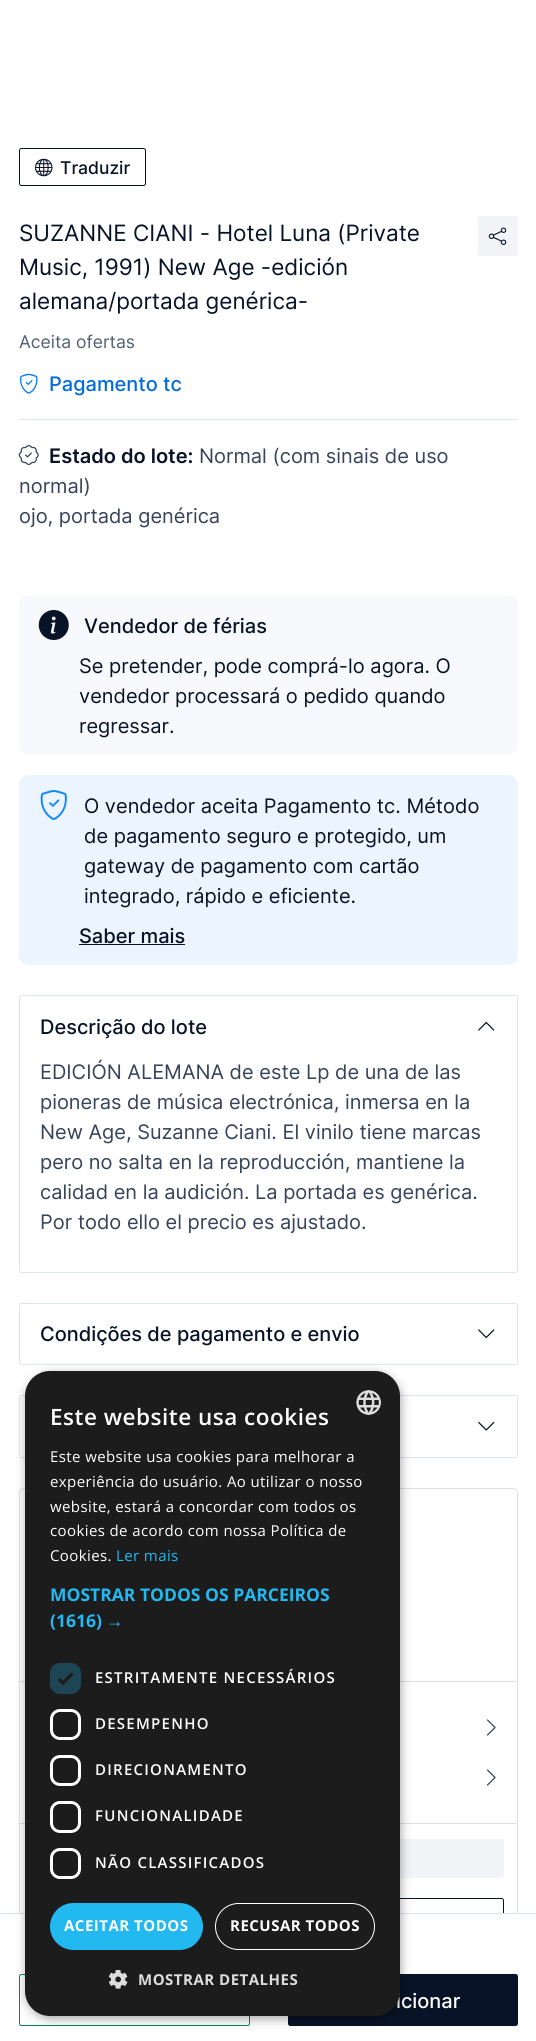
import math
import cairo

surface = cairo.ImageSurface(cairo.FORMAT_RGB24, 536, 2041)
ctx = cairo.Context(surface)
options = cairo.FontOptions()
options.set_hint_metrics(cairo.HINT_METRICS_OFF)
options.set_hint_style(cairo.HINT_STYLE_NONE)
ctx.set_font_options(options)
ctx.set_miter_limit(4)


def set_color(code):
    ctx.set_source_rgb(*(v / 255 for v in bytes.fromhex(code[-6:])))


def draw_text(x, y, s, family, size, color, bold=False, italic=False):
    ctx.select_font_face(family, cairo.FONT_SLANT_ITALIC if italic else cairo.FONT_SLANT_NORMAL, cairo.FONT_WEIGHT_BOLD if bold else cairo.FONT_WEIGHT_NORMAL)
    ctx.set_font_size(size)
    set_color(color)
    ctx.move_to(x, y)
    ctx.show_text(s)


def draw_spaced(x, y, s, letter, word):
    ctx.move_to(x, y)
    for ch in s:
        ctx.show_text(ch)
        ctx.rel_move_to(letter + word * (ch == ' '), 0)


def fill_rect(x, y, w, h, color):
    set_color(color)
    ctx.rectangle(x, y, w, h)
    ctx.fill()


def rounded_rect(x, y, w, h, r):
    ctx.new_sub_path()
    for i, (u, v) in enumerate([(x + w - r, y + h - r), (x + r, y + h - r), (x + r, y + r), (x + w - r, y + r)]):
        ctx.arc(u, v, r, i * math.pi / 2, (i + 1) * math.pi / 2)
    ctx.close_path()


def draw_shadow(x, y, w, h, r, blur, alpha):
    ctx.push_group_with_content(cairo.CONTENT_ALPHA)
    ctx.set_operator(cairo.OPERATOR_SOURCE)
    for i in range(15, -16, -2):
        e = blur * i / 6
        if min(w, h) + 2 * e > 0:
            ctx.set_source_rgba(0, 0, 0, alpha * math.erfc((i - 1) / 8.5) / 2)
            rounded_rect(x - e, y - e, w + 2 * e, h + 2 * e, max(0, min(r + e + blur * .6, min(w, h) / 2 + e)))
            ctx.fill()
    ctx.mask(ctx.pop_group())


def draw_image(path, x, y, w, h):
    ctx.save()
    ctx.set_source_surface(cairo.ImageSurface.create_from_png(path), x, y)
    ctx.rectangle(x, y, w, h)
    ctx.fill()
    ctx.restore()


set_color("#ffffff")
ctx.paint()
rounded_rect(19.5, 148.5, 126, 37, 2)
set_color("#081327")
ctx.set_line_width(1)
ctx.stroke()
draw_image("assets/img1.png", 35, 158, 18, 19)
draw_text(60, 174, "Traduzir", "Inter Medium", 17.5, "#081327")
draw_text(19, 241, "SUZANNE CIANI - Hotel Luna (Private", "Inter", 22.5, "#081327")
draw_text(19, 275, "Music, 1991) New Age -edición", "Inter", 22.5, "#081327")
draw_text(19, 309, "alemana/portada genérica-", "Inter", 22.5, "#081327")
set_color("#f2f4f8")
rounded_rect(478, 216, 40, 40, 2.5)
ctx.fill()
draw_image("assets/img2.png", 488, 227, 19, 18)
draw_text(19, 348, "Aceita ofertas", "Inter", 17.5, "#535f74")
draw_image("assets/img3.png", 20, 373, 18, 21)
draw_text(49, 391, "Pagamento tc", "Inter Medium", 20, "#006add")
fill_rect(19, 419, 499, 1, "#dfe5ec")
draw_image("assets/img4.png", 18, 445, 21, 20)
draw_text(49, 463, "Estado do lote:", "Inter SemiBold", 20, "#081327")
draw_text(199, 463, "Normal (com sinais de uso", "Inter", 20, "#36435a")
draw_text(19, 493, "normal)", "Inter", 20, "#36435a")
draw_text(19, 523, "ojo, portada genérica", "Inter", 20, "#36435a")
set_color("#f8f9fc")
rounded_rect(19, 595, 499, 160, 10)
ctx.fill()
draw_image("assets/img5.png", 38, 610, 31, 30)
draw_text(84, 633, "Vendedor de férias", "Inter Medium", 20, "#081327")
draw_text(79, 673, "Se pretender, pode comprá-lo agora. O", "Inter", 20, "#081327")
draw_text(79, 703, "vendedor processará o pedido quando", "Inter", 20, "#081327")
draw_text(79, 733, "regressar.", "Inter", 20, "#081327")
set_color("#ebf4ff")
rounded_rect(19, 775, 499, 190, 10)
ctx.fill()
draw_image("assets/img6.png", 40, 790, 27, 30)
draw_text(84, 813, "O vendedor aceita Pagamento tc. Método", "Inter", 20, "#081327")
draw_text(84, 843, "de pagamento seguro e protegido, um", "Inter", 20, "#081327")
draw_text(84, 873, "gateway de pagamento com cartão", "Inter", 20, "#081327")
draw_text(84, 903, "integrado, rápido e eficiente.", "Inter", 20, "#081327")
draw_text(79, 943, "Saber mais", "Inter Medium", 20, "#081327")
fill_rect(79, 944, 106, 1, "#081327")
rounded_rect(19.5, 995.5, 498, 277, 2)
set_color("#dfe5ec")
ctx.stroke()
draw_text(40, 1034, "Descrição do lote", "Inter Medium", 20, "#081327")
draw_image("assets/img7.png", 478, 1021, 17, 10)
draw_text(40, 1079, "EDICIÓN ALEMANA de este Lp de una de las", "Inter", 20, "#36435a")
draw_text(40, 1109, "pioneras de música electrónica, inmersa en la", "Inter", 20, "#36435a")
draw_text(40, 1139, "New Age, Suzanne Ciani. El vinilo tiene marcas", "Inter", 20, "#36435a")
draw_text(40, 1169, "pero no salta en la reproducción, mantiene la", "Inter", 20, "#36435a")
draw_text(40, 1199, "calidad en la audición. La portada es genérica.", "Inter", 20, "#36435a")
draw_text(40, 1229, "Por todo ello el precio es ajustado.", "Inter", 20, "#36435a")
rounded_rect(19.5, 1303.5, 498, 61, 2)
set_color("#dfe5ec")
ctx.stroke()
draw_text(40, 1341, "Condições de pagamento e envio", "Inter Medium", 20, "#081327")
draw_image("assets/img8.png", 478, 1329, 17, 10)
rounded_rect(19.5, 1395.5, 498, 62, 2)
set_color("#dfe5ec")
ctx.stroke()
draw_image("assets/img9.png", 478, 1421, 17, 10)
rounded_rect(19.5, 1488.5, 498, 546, 4.5)
set_color("#dfdfdf")
ctx.stroke()
fill_rect(20, 1681, 496, 1, "#dfdfdf")
draw_image("assets/img10.png", 486, 1719, 10, 17)
draw_image("assets/img10.png", 486, 1769, 10, 17)
fill_rect(20, 1823, 496, 1, "#dfdfdf")
set_color("#f2f4f8")
rounded_rect(38, 1839, 466, 39, 2.5)
ctx.fill()
rounded_rect(38.5, 1898.5, 465, 37, 2)
set_color("#081327")
ctx.stroke()
fill_rect(0, 1913, 536, 1, "#dfe5ec")
fill_rect(19, 1914, 499, 121, "#ffffff")
rounded_rect(19.5, 1974.5, 230, 51, 2)
set_color("#008857")
ctx.stroke()
set_color("#081327")
rounded_rect(288.5, 1974.5, 229, 51, 2)
ctx.fill_preserve()
ctx.stroke()
draw_text(396, 2008, "icionar", "Inter Medium", 20, "#ffffff")
set_color("#000000")
draw_shadow(26, 1374, 375, 645, 25, 5, 0.35)
set_color("#1c1c1c")
rounded_rect(25, 1371, 375, 645, 25)
ctx.fill()
ctx.select_font_face("Open Sans SemiBold")
ctx.set_font_size(22.5)
set_color("#ffffff")
draw_spaced(50, 1425, "Este website usa cookies", 0.5, 0)
draw_image("assets/img11.png", 356, 1390, 25, 25)
ctx.select_font_face("Open Sans")
ctx.set_font_size(15)
draw_spaced(50, 1462, "Este website usa cookies para melhorar a", 0.4, 0)
draw_spaced(50, 1487, "experiência do usuário. Ao utilizar o nosso", 0.4, 0)
draw_spaced(50, 1512, "website, estará a concordar com todos os", 0.4, 0)
draw_spaced(50, 1536, "cookies de acordo com nossa Política de", 0.4, 0)
draw_spaced(50, 1561, "Cookies.", 0.4, 0)
set_color("#22b8f0")
draw_spaced(116, 1561, "Ler mais", 0.4, 0)
draw_text(50, 1601, "MOSTRAR TODOS OS PARCEIROS", "Open Sans", 17.5, "#22b8f0", bold=True)
draw_text(50, 1627, "(1616)", "Open Sans", 17.5, "#22b8f0", bold=True)
draw_text(106, 1627, "→", "Liberation Sans", 17.5, "#22b8f0", bold=True)
set_color("#1e4553")
rounded_rect(50, 1663, 31, 31, 10)
ctx.fill()
ctx.new_path()
ctx.move_to(58.5, 1679)
ctx.line_to(63, 1683)
ctx.line_to(72.5, 1673.5)
set_color("#1c1c1c")
ctx.set_line_width(3.3)
ctx.stroke()
ctx.select_font_face("Open Sans SemiBold")
ctx.set_font_size(15)
set_color("#ffffff")
draw_spaced(95, 1683, "ESTRITAMENTE NECESSÁRIOS", 1.25, 0)
rounded_rect(51.5, 1710.5, 28, 28, 8.5)
ctx.set_line_width(3)
ctx.stroke()
draw_spaced(95, 1729, "DESEMPENHO", 1.25, 0)
rounded_rect(51.5, 1756.5, 28, 28, 8.5)
ctx.stroke()
draw_spaced(95, 1775, "DIRECIONAMENTO", 1.25, 0)
rounded_rect(51.5, 1802.5, 28, 29, 8.5)
ctx.stroke()
draw_spaced(95, 1821, "FUNCIONALIDADE", 1.25, 0)
rounded_rect(51.5, 1849.5, 28, 28, 8.5)
ctx.stroke()
draw_spaced(95, 1868, "NÃO CLASSIFICADOS", 1.25, 0)
set_color("#22b8f0")
rounded_rect(50, 1903, 153, 47, 23.5)
ctx.fill()
ctx.select_font_face("Open Sans", cairo.FONT_SLANT_NORMAL, cairo.FONT_WEIGHT_BOLD)
set_color("#ffffff")
draw_spaced(64, 1931, "ACEITAR TODOS", 0.5, 0)
rounded_rect(215.5, 1903.5, 159, 46, 23)
ctx.set_line_width(1)
ctx.stroke()
draw_spaced(230, 1931, "RECUSAR TODOS", 0.5, 0)
draw_image("assets/img12.png", 109, 1970, 19, 19)
set_color("#dddddd")
draw_spaced(138, 1985, "MOSTRAR DETALHES", 0.5, 0)
surface.write_to_png("output.png")
